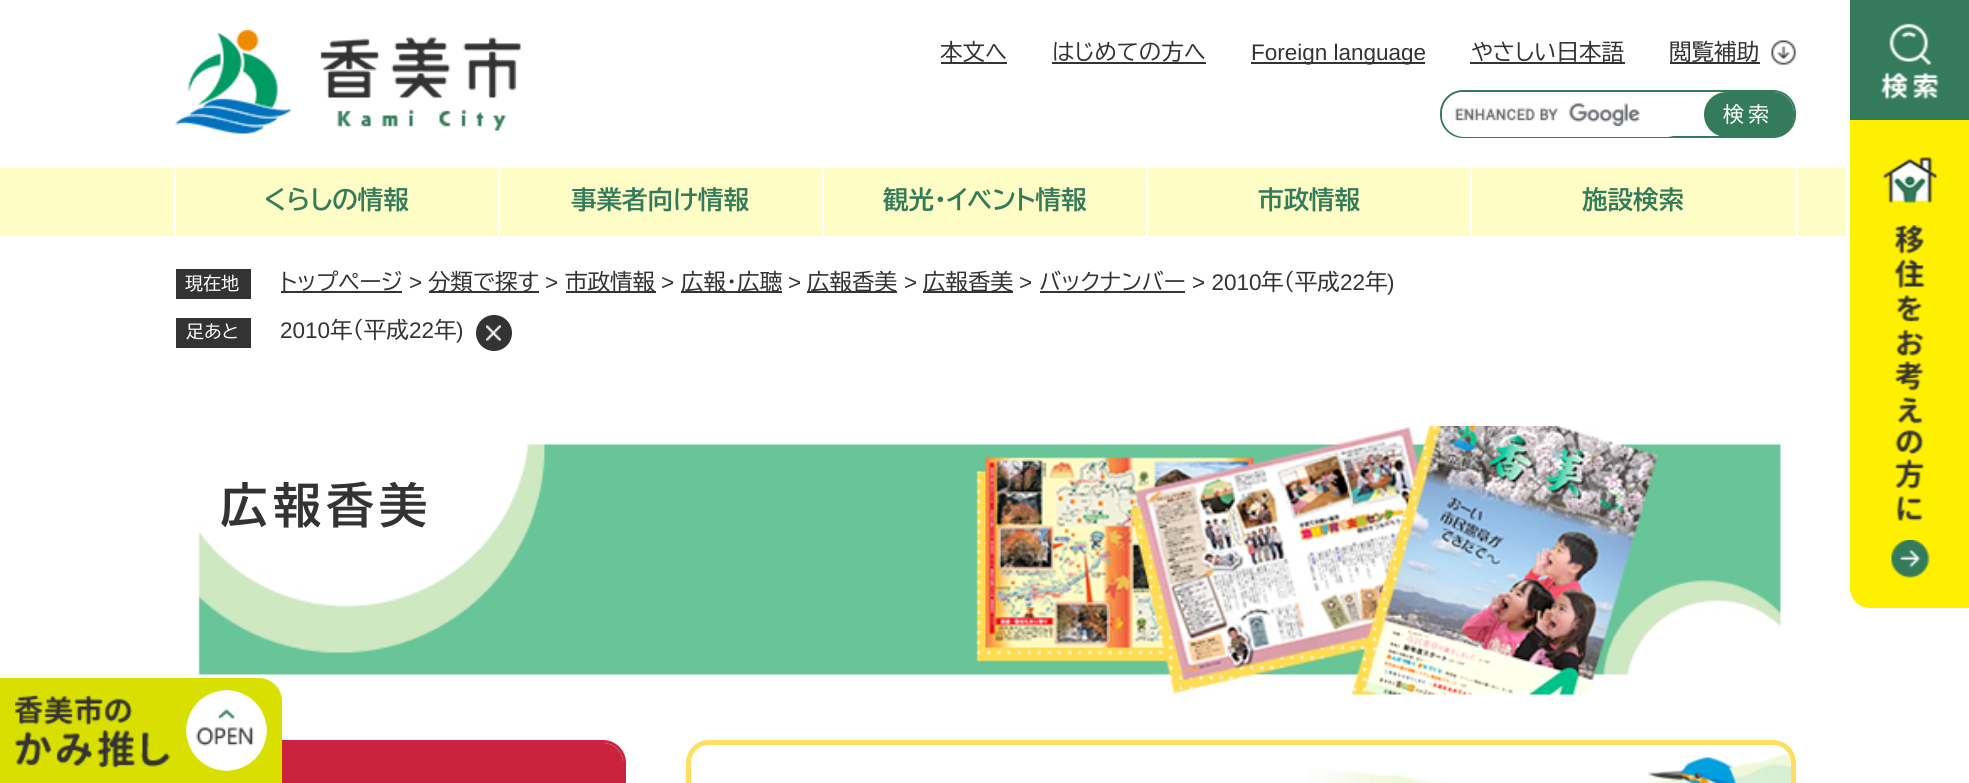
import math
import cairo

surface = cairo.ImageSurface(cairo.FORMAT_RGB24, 1969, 783)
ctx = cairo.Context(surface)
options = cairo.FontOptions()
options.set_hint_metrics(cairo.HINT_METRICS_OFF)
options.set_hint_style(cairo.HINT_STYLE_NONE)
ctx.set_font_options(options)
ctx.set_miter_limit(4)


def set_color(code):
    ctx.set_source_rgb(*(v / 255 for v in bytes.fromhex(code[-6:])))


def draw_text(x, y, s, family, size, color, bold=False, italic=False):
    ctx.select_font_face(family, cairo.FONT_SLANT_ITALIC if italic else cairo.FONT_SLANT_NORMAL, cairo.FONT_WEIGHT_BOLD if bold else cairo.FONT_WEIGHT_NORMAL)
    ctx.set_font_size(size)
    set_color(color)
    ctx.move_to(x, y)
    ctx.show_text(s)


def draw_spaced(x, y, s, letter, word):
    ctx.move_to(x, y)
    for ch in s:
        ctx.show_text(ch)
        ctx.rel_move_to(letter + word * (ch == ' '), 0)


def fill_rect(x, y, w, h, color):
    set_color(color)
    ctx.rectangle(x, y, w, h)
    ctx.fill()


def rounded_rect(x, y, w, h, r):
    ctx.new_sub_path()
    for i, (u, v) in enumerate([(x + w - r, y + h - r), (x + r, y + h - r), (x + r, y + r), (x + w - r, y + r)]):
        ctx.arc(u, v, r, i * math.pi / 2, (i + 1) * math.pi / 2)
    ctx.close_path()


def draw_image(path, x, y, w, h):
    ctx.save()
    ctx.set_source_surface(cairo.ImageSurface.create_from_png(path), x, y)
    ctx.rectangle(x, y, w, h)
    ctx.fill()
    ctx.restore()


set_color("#ffffff")
ctx.paint()
draw_image("assets/img1.png", 175, 30, 346, 104)
fill_rect(941, 62, 66, 2, "#333333")
draw_text(940, 60, "本文へ", "BIZ UDPGothic", 22.5, "#333333")
draw_text(1052, 60, "はじめての方へ", "BIZ UDPGothic", 22.5, "#333333")
fill_rect(1052, 62, 154, 2, "#333333")
fill_rect(1251, 62, 174, 2, "#333333")
draw_text(1251, 60, "Foreign language", "Liberation Sans", 22.5, "#333333")
fill_rect(1470, 62, 155, 2, "#333333")
draw_text(1471, 60, "やさしい日本語", "BIZ UDPGothic", 22.5, "#333333")
fill_rect(1670, 62, 90, 2, "#333333")
draw_text(1669, 60, "閲覧補助", "BIZ UDPGothic", 22.5, "#333333")
draw_image("assets/img2.png", 1771, 40, 25, 25)
rounded_rect(1441, 91, 354, 46, 22)
set_color("#347b5b")
ctx.stroke()
ctx.save()
rounded_rect(1442, 92, 352, 45, 21)
ctx.clip()
set_color("#ffffff")
rounded_rect(1442, 92, 247, 45, 22.5)
ctx.fill()
ctx.restore()
draw_image("assets/img3.png", 1455, 103, 185, 23)
ctx.new_path()
ctx.move_to(1726.5, 92)
ctx.line_to(1773, 92)
ctx.curve_to(1784.5, 92, 1794, 101.5, 1794, 113)
ctx.line_to(1794, 116)
ctx.curve_to(1794, 127.5, 1784.5, 137, 1773, 137)
ctx.line_to(1726.5, 137)
ctx.curve_to(1714, 137, 1704, 127, 1704, 114.5)
ctx.curve_to(1704, 102, 1714, 92, 1726.5, 92)
ctx.close_path()
ctx.fill()
ctx.set_font_size(21)
set_color("#ffffff")
draw_spaced(1723, 122, "検索", 4, 0)
fill_rect(0, 168, 1846, 68, "#fffdc6")
fill_rect(174, 168, 2, 68, "#ffffff")
fill_rect(498, 168, 2, 68, "#ffffff")
draw_text(264, 209, "くらしの情報", "BIZ UDPGothic", 25.5, "#347b5b", bold=True)
fill_rect(822, 168, 2, 68, "#ffffff")
draw_text(571, 209, "事業者向け情報", "BIZ UDPGothic", 25.5, "#347b5b", bold=True)
fill_rect(1146, 168, 2, 68, "#ffffff")
draw_text(883, 209, "観光・イベント情報", "BIZ UDPGothic", 25.5, "#347b5b", bold=True)
fill_rect(1470, 168, 2, 68, "#ffffff")
draw_text(1258, 209, "市政情報", "BIZ UDPGothic", 25.5, "#347b5b", bold=True)
fill_rect(1796, 168, 2, 68, "#ffffff")
draw_text(1582, 209, "施設検索", "BIZ UDPGothic", 25.5, "#347b5b", bold=True)
fill_rect(1850, 0, 119, 120, "#347b5b")
draw_image("assets/img4.png", 1880, 23, 59, 77)
set_color("#fff000")
ctx.new_path()
ctx.move_to(1850, 120)
ctx.line_to(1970, 120)
ctx.line_to(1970, 608)
ctx.line_to(1870, 608)
ctx.curve_to(1859, 608, 1850, 599, 1850, 588)
ctx.close_path()
ctx.fill()
draw_image("assets/img5.png", 1883, 157, 54, 46)
draw_image("assets/img6.png", 1894, 225, 31, 296)
draw_image("assets/img7.png", 1891, 540, 39, 38)
fill_rect(176, 269, 75, 30, "#333333")
draw_text(185, 290, "現在地", "BIZ UDPGothic", 18, "#ffffff")
draw_text(280, 290, "トップページ", "BIZ UDPGothic", 22.5, "#333333")
fill_rect(281, 291, 121, 2, "#333333")
draw_text(409, 290, ">", "Liberation Sans", 22.5, "#333333")
fill_rect(429, 291, 110, 2, "#333333")
draw_text(428, 290, "分類で探す", "BIZ UDPGothic", 22.5, "#333333")
draw_text(545, 290, ">", "Liberation Sans", 22.5, "#333333")
fill_rect(566, 291, 90, 2, "#333333")
draw_text(565, 290, "市政情報", "BIZ UDPGothic", 22.5, "#333333")
draw_text(661, 290, ">", "Liberation Sans", 22.5, "#333333")
fill_rect(681, 291, 101, 2, "#333333")
draw_text(681, 290, "広報・広聴", "BIZ UDPGothic", 22.5, "#333333")
draw_text(788, 290, ">", "Liberation Sans", 22.5, "#333333")
fill_rect(807, 291, 90, 2, "#333333")
draw_text(807, 290, "広報香美", "BIZ UDPGothic", 22.5, "#333333")
draw_text(904, 290, ">", "Liberation Sans", 22.5, "#333333")
fill_rect(923, 291, 90, 2, "#333333")
draw_text(923, 290, "広報香美", "BIZ UDPGothic", 22.5, "#333333")
draw_text(1019, 290, ">", "Liberation Sans", 22.5, "#333333")
fill_rect(1040, 291, 145, 2, "#333333")
draw_text(1039, 290, "バックナンバー", "BIZ UDPGothic", 22.5, "#333333")
draw_text(1192, 290, "> 2010", "Liberation Sans", 22.5, "#333333")
draw_text(1261, 290, "年（平成", "BIZ UDPGothic", 22.5, "#333333")
draw_text(1340, 290, "22", "Liberation Sans", 22.5, "#333333")
draw_text(1365, 290, "年", "BIZ UDPGothic", 22.5, "#333333")
draw_text(1387, 290, ")", "Liberation Sans", 22.5, "#333333")
fill_rect(176, 318, 75, 30, "#333333")
draw_text(186, 338, "足あと", "BIZ UDPGothic", 18, "#ffffff")
draw_text(280, 338, "2010", "Liberation Sans", 22.5, "#333333")
draw_text(330, 338, "年（平成", "BIZ UDPGothic", 22.5, "#333333")
draw_text(409, 338, "22", "Liberation Sans", 22.5, "#333333")
draw_text(434, 338, "年", "BIZ UDPGothic", 22.5, "#333333")
draw_text(456, 338, ")", "Liberation Sans", 22.5, "#333333")
ctx.new_path()
ctx.arc(494, 333, 18, 0, 2 * math.pi)
ctx.fill()
draw_image("assets/img8.png", 486, 325, 15, 16)
draw_image("assets/img9.png", 198, 426, 1583, 269)
ctx.select_font_face("BIZ UDPGothic", cairo.FONT_SLANT_NORMAL, cairo.FONT_WEIGHT_BOLD)
ctx.set_font_size(48)
draw_spaced(220, 523, "広報香美", 5, 0)
rounded_rect(177.5, 741.5, 447, 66, 21.5)
set_color("#cb223f")
ctx.set_line_width(3)
ctx.stroke()
ctx.new_path()
ctx.move_to(199, 743)
ctx.line_to(603, 743)
ctx.curve_to(614, 743, 623, 752, 623, 763)
ctx.line_to(623, 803)
ctx.line_to(179, 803)
ctx.line_to(179, 763)
ctx.curve_to(179, 752, 188, 743, 199, 743)
ctx.close_path()
ctx.fill()
draw_image("assets/img10.png", 1306, 754, 485, 29)
rounded_rect(688.5, 742.5, 1105, 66, 20.5)
set_color("#ffdf62")
ctx.set_line_width(5)
ctx.stroke()
set_color("#dadf02")
ctx.new_path()
ctx.move_to(0, 678)
ctx.line_to(259, 678)
ctx.curve_to(271.5, 678, 282, 688.5, 282, 701)
ctx.line_to(282, 783)
ctx.line_to(0, 783)
ctx.close_path()
ctx.fill()
draw_image("assets/img11.png", 15, 694, 155, 74)
draw_image("assets/img12.png", 186, 690, 81, 81)
surface.write_to_png("output.png")
